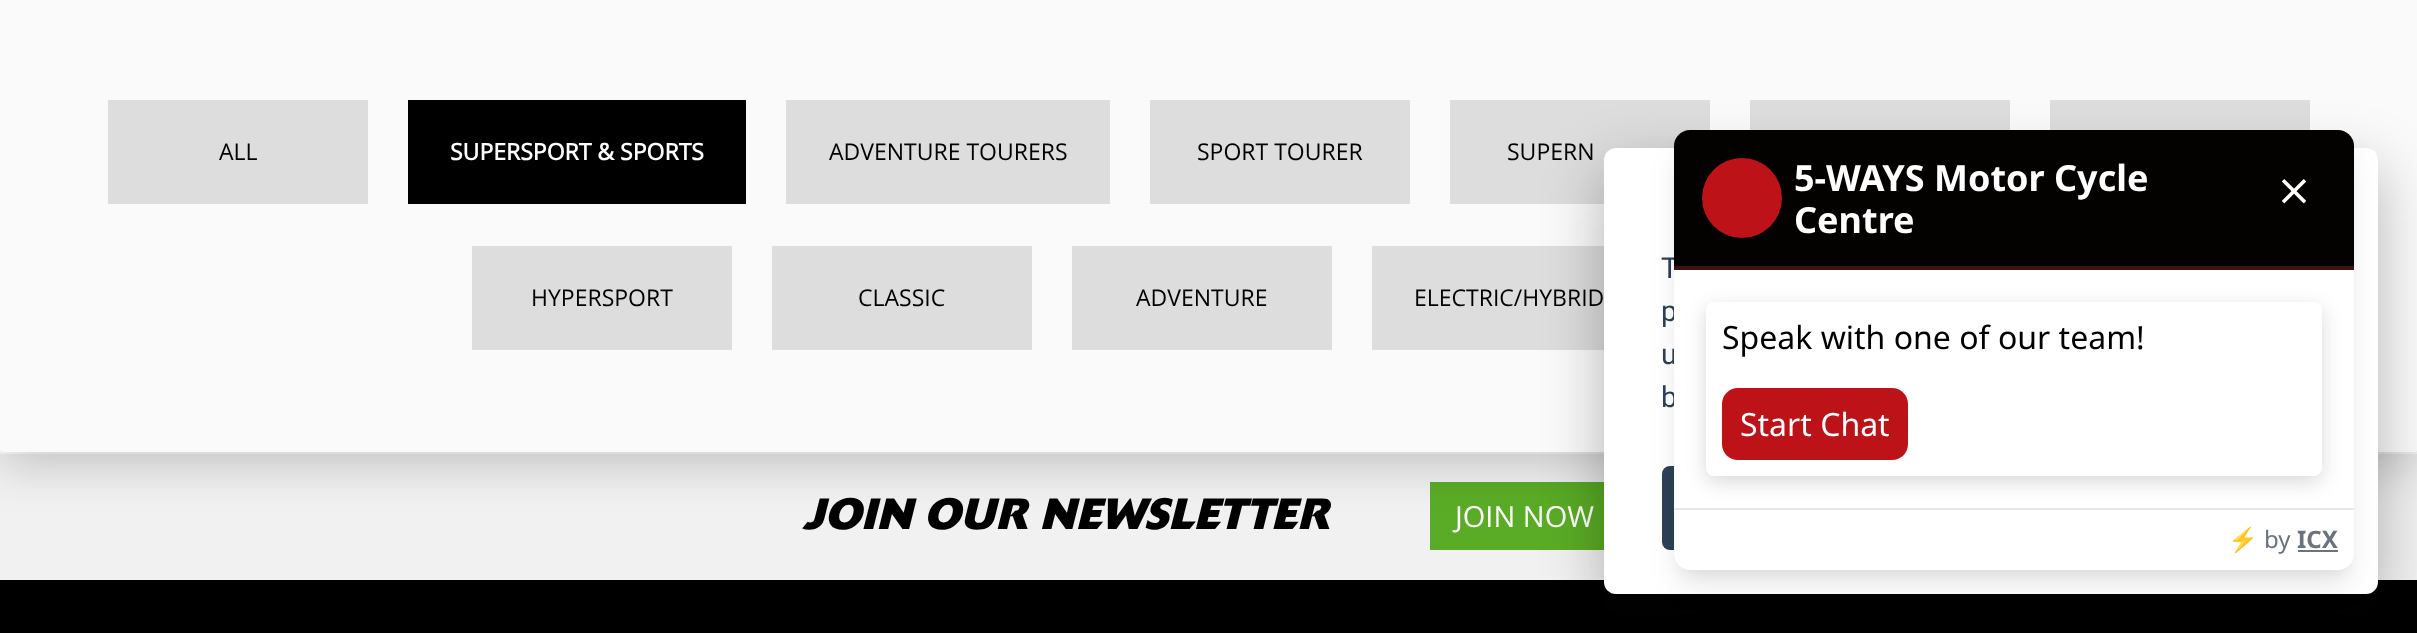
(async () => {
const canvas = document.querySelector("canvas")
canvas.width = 2417
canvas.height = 633
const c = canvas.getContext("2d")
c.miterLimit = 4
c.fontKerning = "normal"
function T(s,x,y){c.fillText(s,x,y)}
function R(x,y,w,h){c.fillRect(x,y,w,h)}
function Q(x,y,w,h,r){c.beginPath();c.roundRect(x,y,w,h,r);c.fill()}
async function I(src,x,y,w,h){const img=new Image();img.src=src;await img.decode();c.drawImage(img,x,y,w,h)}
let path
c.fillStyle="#fff"
R(0,0,2417,633)
c.fillStyle="#f1f1f1"
R(0,454,2417,126)
c.fillStyle="#5aac26"
R(1430,482,174,68)
c.fillStyle="#00000033"
c.filter="blur(24px)"
c.beginPath()
c.roundRect(0,12,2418,452,4)
c.fill()
c.filter="none"
c.fillStyle="#fafafa"
Q(0,0,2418,452,4)
c.fillStyle="#ddd"
R(1750,100,260,30)
R(2050,100,260,30)
R(108,100,260,104)
c.font="23px Open Sans"
c.fillStyle="#000"
T("ALL",219,160)
R(408,100,338,104)
c.font="bold 23px Open Sans"
c.fillStyle="#fff"
T("SUPERSPORT & SPORTS",450,160)
c.fillStyle="#ddd"
R(786,100,324,104)
c.font="23px Open Sans"
c.fillStyle="#000"
T("ADVENTURE TOURERS",829,160)
c.fillStyle="#ddd"
R(1150,100,260,104)
c.fillStyle="#000"
T("SPORT TOURER",1197,160)
c.fillStyle="#ddd"
R(1450,100,260,104)
c.fillStyle="#000"
T("SUPERN",1507,160)
c.fillStyle="#ddd"
R(472,246,260,104)
c.fillStyle="#000"
T("HYPERSPORT",531,306)
c.fillStyle="#ddd"
R(772,246,260,104)
c.fillStyle="#000"
T("CLASSIC",858,306)
c.fillStyle="#ddd"
R(1072,246,260,104)
c.fillStyle="#000"
T("ADVENTURE",1136,306)
c.fillStyle="#ddd"
R(1372,246,232,104)
c.fillStyle="#000"
T("ELECTRIC/HYBRID",1414,306)
R(0,580,2417,53)
c.font="italic bold 43.25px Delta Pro"
T("JOIN OUR NEWSLETTER",802,529)
c.font="29px Open Sans"
c.fillStyle="#fff"
T("JOIN NOW",1455,527)
c.fillStyle="#02020347"
c.filter="blur(30px)"
c.beginPath()
c.roundRect(1604,168,774,446,12)
c.fill()
c.filter="none"
c.fillStyle="#fff"
Q(1604,148,774,446,12)
c.font="29px Roboto"
c.fillStyle="#2d4156"
T("T",1661,278)
T("p",1661,321)
T("u",1661,364)
T("b",1661,407)
Q(1662,466,316,84,8)
c.fillStyle="#0000000d"
c.filter="blur(6px)"
c.beginPath()
c.roundRect(1678,142,672,432,12)
c.fill()
c.filter="none"
c.fillStyle="#0000001a"
c.filter="blur(15px)"
c.beginPath()
c.roundRect(1680,156,668,428,10)
c.fill()
c.filter="none"
c.fillStyle="#040101"
c.beginPath()
c.roundRect(1674,130,680,136,[16,16,0,0])
c.fill()
c.fillStyle="#411010"
R(1674,266,680,4)
c.fillStyle="#bd1218"
c.beginPath()
c.arc(1742,198,40,0,7)
c.fill()
c.font="bold 36px Noto Sans"
c.fillStyle="#fff"
T("5-WAYS Motor Cycle",1794,191)
T("Centre",1794,233)
await I("1.png",2282,179,24,25)
R(1674,270,680,238)
c.beginPath()
c.roundRect(1674,510,680,60,[0,0,16,16])
c.fill()
c.fillStyle="#e5e7eb"
R(1674,508,680,2)
c.fillStyle="#00000026"
c.filter="blur(10px)"
c.beginPath()
c.roundRect(1706,308,616,174,8)
c.fill()
c.filter="none"
c.fillStyle="#fff"
Q(1706,302,616,174,8)
c.font="32px Noto Sans"
c.fillStyle="#000"
T("Speak with one of our team!",1722,349)
c.fillStyle="#bd1218"
path = new Path2D("M1738 388h154c9 0 16 7 16 16v40c0 9-7 16-16 16h-154c-9 0-16-7-16-16v-40c0-9 7-16 16-16z")
c.fill(path)
c.fillStyle="#fff"
T("Start Chat",1740,436)
c.font="24px Noto Color Emoji"
c.fillStyle="#6b7280"
T("⚡",2228,548)
c.font="24px Noto Sans"
T("by",2264,548)
c.font="bold 24px Noto Sans"
T("ICX",2297,548)
R(2298,550,40,2)
})()
